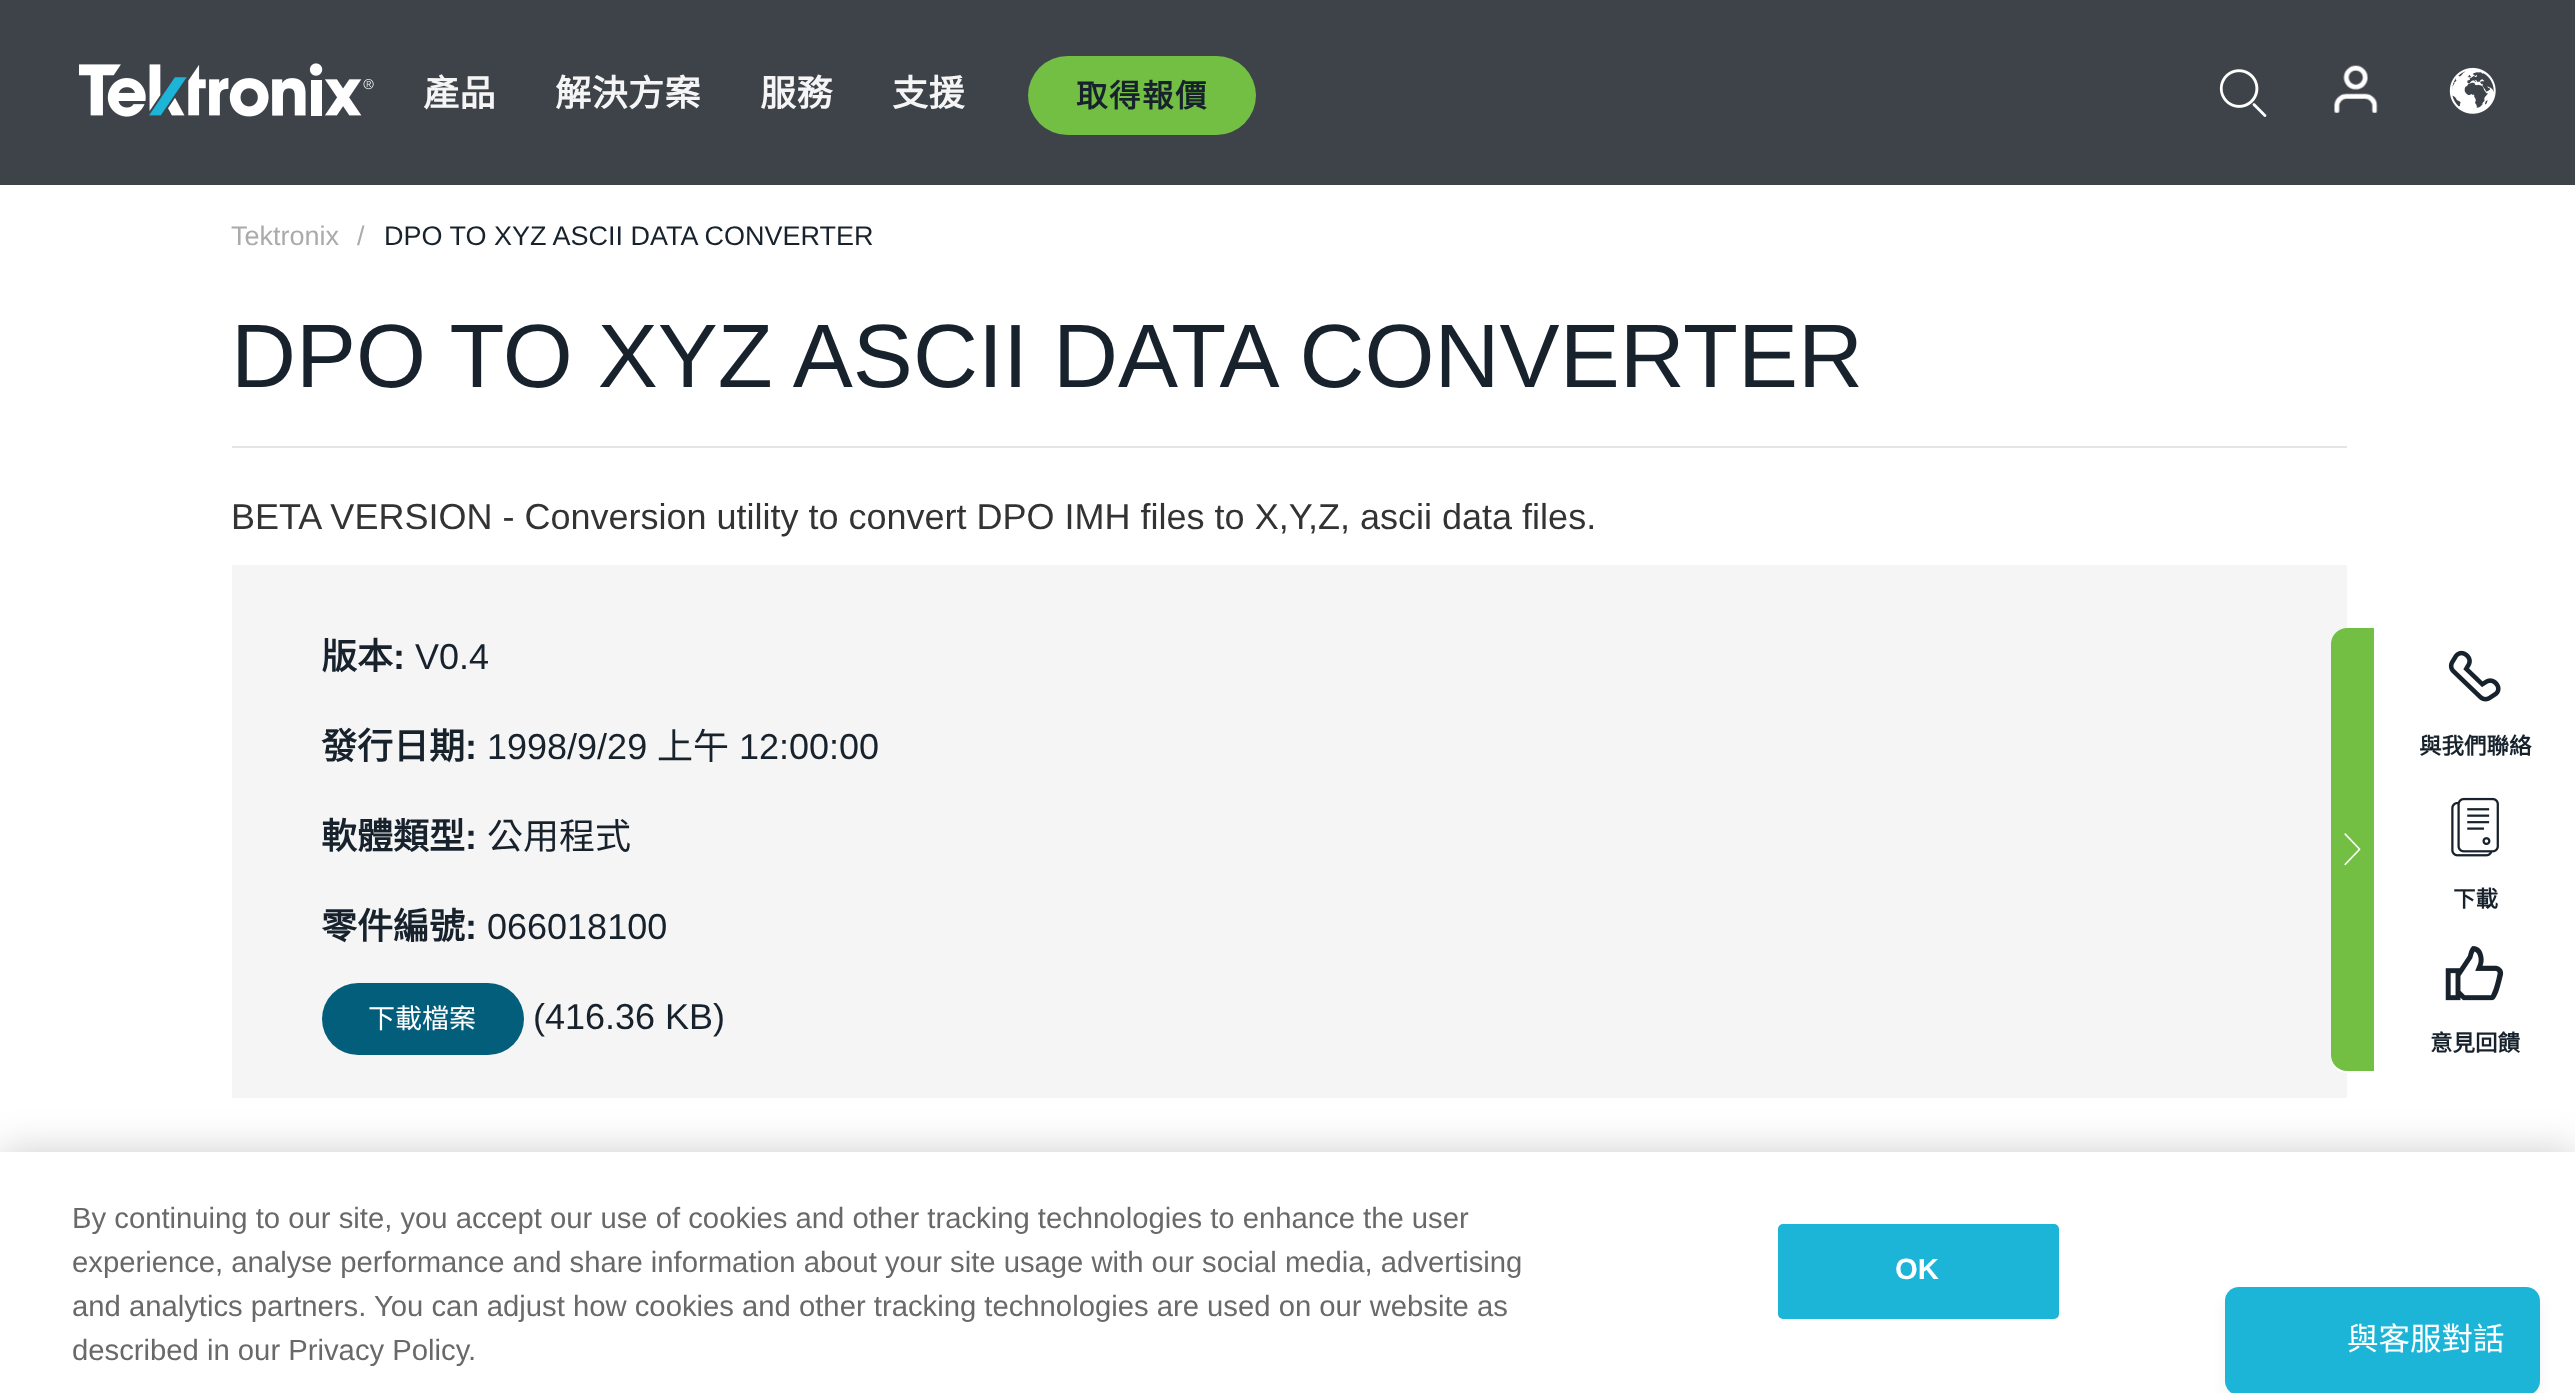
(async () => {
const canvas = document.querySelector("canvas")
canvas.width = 2575
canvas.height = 1393
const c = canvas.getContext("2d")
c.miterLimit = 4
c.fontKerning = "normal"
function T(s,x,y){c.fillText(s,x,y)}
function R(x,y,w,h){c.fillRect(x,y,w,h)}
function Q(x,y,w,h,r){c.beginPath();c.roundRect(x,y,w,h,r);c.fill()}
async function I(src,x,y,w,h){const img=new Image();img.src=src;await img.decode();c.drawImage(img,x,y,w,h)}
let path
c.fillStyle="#fff"
R(0,0,2575,1393)
c.fillStyle="#3e434a"
R(0,0,2575,185)
await I("1.png",79,63,295,54)
c.letterSpacing="0.5px"
c.font="bold 36px Noto Sans CJK TC"
c.fillStyle="#f5f5f5"
T("產品",423,106)
T("解決方案",555,106)
T("服務",760,106)
T("支援",892,106)
c.fillStyle="#73bf44"
Q(1028,56,228,79,39.5)
c.letterSpacing="1.5px"
c.font="bold 31.5px Noto Sans CJK TC"
c.fillStyle="#17222c"
T("取得報價",1076,107)
await I("2.png",2219,69,48,48)
await I("3.png",2334,65,44,48)
await I("4.png",2449,67,47,47)
c.letterSpacing="0px"
c.font="27px Liberation Sans"
c.fillStyle="#ababab"
T("Tektronix",231,245)
T("/",357,245)
c.fillStyle="#17222c"
T("DPO TO XYZ ASCII DATA CONVERTER",384,245)
c.fillStyle="#e5e5e5"
R(232,446,2115,2)
c.font="90px Liberation Sans"
c.fillStyle="#17222c"
T("DPO TO XYZ ASCII DATA CONVERTER",231,387)
c.font="36px Liberation Sans"
c.fillStyle="#333"
T("BETA VERSION - Conversion utility to convert DPO IMH files to X,Y,Z, ascii data files.",231,529)
c.fillStyle="#f5f5f5"
R(232,565,2115,533)
c.font="bold 36px Noto Sans CJK TC"
c.fillStyle="#17222c"
T("版本",321,669)
c.font="bold 36px Liberation Sans"
T(":",393,669)
c.font="36px Liberation Sans"
T("V0.4",415,669)
c.font="bold 36px Noto Sans CJK TC"
T("發行日期",321,759)
c.font="bold 36px Liberation Sans"
T(":",465,759)
c.font="36px Liberation Sans"
T("1998/9/29",487,759)
c.font="36px Noto Sans CJK TC"
T("上午",657,759)
c.font="36px Liberation Sans"
T("12:00:00",739,759)
c.font="bold 36px Noto Sans CJK TC"
T("軟體類型",321,849)
c.font="bold 36px Liberation Sans"
T(":",465,849)
c.font="36px Noto Sans CJK TC"
T("公用程式",487,849)
c.font="bold 36px Noto Sans CJK TC"
T("零件編號",321,939)
c.font="bold 36px Liberation Sans"
T(":",465,939)
c.font="36px Liberation Sans"
T("066018100",487,939)
c.fillStyle="#035e7c"
Q(322,983,202,72,36)
c.font="27px Noto Sans CJK TC"
c.fillStyle="#fff"
T("下載檔案",368,1028)
c.font="36px Liberation Sans"
c.fillStyle="#17222c"
T("(416.36 KB)",533,1029)
c.fillStyle="#fff"
path = new Path2D("M2347 628h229v445h-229c-9 0-16-7-16-16v-413c0-9 7-16 16-16z")
c.fill(path)
c.fillStyle="#73bf44"
c.beginPath()
c.roundRect(2331,628,43,443,[16,0,0,16])
c.fill()
await I("5.png",2344,833,17,33)
await I("6.png",2448,650,53,52)
c.font="bold 22.5px Noto Sans CJK TC"
c.fillStyle="#17222c"
T("與我們聯絡",2419,754)
await I("7.png",2451,797,48,60)
T("下載",2453,907)
await I("8.png",2445,946,59,55)
T("意見回饋",2430,1051)
c.fillStyle="#00000033"
c.filter="blur(20px)"
c.beginPath()
c.rect(0,1152,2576,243)
c.fill()
c.filter="none"
c.fillStyle="#fff"
R(0,1152,2575,241)
c.font="29.25px Liberation Sans"
c.fillStyle="#696969"
T("By continuing to our site, you accept our use of cookies and other tracking technologies to enhance the user",72,1228)
T("experience, analyse performance and share information about your site usage with our social media, advertising",72,1272)
T("and analytics partners.",72,1316)
T("You can adjust how cookies and other tracking technologies are used on our website as",374,1316)
T("described in our Privacy Policy.",72,1360)
c.fillStyle="#1cb5d8"
c.beginPath()
c.roundRect(1779,1225,279,93,4)
c.fill()
c.strokeStyle="#1cb5d8"
c.lineWidth=2
c.stroke()
c.font="bold 29.25px Liberation Sans"
c.fillStyle="#fff"
T("OK",1895,1279)
c.fillStyle="#1516180d"
c.filter="blur(7px)"
c.beginPath()
c.roundRect(2225,1296,315,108,14)
c.fill()
c.filter="none"
c.fillStyle="#1cb5d8"
Q(2225,1287,315,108,14)
c.font="31.5px Noto Sans CJK TC"
c.fillStyle="#fff"
T("與客服對話",2347,1350)
})()
